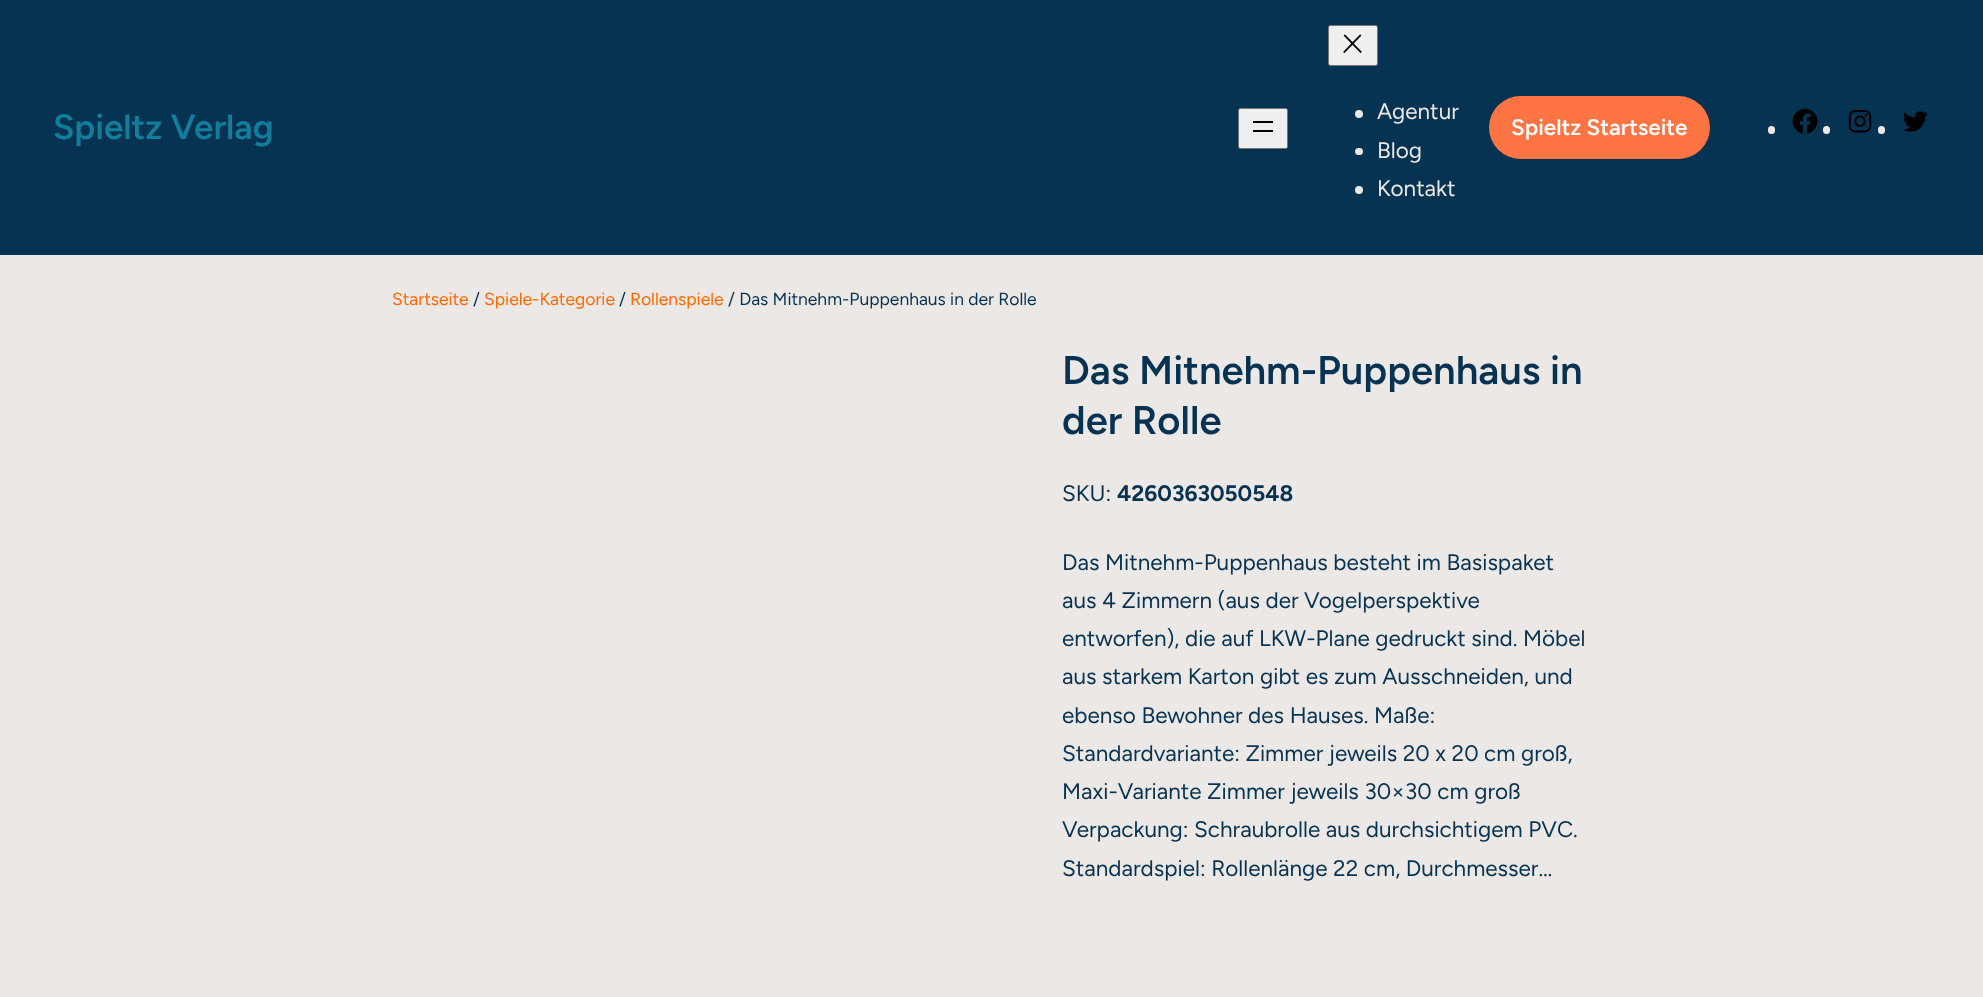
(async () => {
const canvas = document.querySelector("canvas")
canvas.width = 1983
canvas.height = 997
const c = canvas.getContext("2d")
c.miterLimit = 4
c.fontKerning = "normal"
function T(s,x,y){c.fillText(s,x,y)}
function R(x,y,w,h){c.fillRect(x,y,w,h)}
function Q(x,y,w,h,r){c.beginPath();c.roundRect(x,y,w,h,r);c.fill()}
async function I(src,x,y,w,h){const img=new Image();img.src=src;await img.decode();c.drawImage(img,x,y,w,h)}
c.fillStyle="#ebe8e6"
R(0,0,1983,997)
c.fillStyle="#073353"
R(0,0,1983,255)
c.font="600 35px Figtree"
c.fillStyle="#117e9c"
T("Spieltz Verlag",53,139)
c.fillStyle="#efefef"
c.beginPath()
c.roundRect(1238.5,108.5,49,40,2)
c.fill()
c.strokeStyle="#767676"
c.stroke()
c.fillStyle="#000"
R(1253,121,20,2)
R(1253,130,20,2)
c.fillStyle="#efefef"
c.beginPath()
c.roundRect(1328.5,25.5,49,40,2)
c.fill()
c.stroke()
await I("1.png",1343,34,19,19)
c.fillStyle="#ebe8e6"
c.beginPath()
c.arc(1359,114,4,0,7)
c.fill()
c.font="22.5px Figtree"
T("Agentur",1377,119)
Q(1355,148,8,7,3.5)
T("Blog",1377,158)
c.beginPath()
c.arc(1359,190,4,0,7)
c.fill()
T("Kontakt",1377,196)
c.fillStyle="#ff7443"
Q(1489,96,221,63,31.5)
c.font="600 22.5px Figtree"
c.fillStyle="#fdfdfd"
T("Spieltz Startseite",1511,135)
c.fillStyle="#ebe8e6"
Q(1768,126,7,8,3.5)
await I("2.png",1792,108,26,26)
Q(1823,126,7,8,3.5)
await I("3.png",1848,110,24,23)
Q(1878,126,7,8,3.5)
await I("4.png",1903,111,25,21)
c.font="17.5px Figtree"
c.fillStyle="#ff6900"
T("Startseite",392,305)
c.fillStyle="#073353"
T("/",473,305)
c.fillStyle="#ff6900"
T("Spiele-Kategorie",484,305)
c.fillStyle="#073353"
T("/",619,305)
c.fillStyle="#ff6900"
T("Rollenspiele",630,305)
c.fillStyle="#073353"
T("/ Das Mitnehm-Puppenhaus in der Rolle",728,305)
c.font="600 40px Figtree"
T("Das Mitnehm-Puppenhaus in",1062,384)
T("der Rolle",1062,434)
c.font="22.5px Figtree"
T("SKU:",1062,501)
c.font="bold 22.5px Figtree"
T("4260363050548",1117,501)
c.font="22.5px Figtree"
T("Das Mitnehm-Puppenhaus besteht im Basispaket",1062,570)
T("aus 4 Zimmern (aus der Vogelperspektive",1062,608)
T("entworfen), die auf LKW-Plane gedruckt sind. Möbel",1062,646)
T("aus starkem Karton gibt es zum Ausschneiden, und",1062,684)
T("ebenso Bewohner des Hauses. Maße:",1062,723)
T("Standardvariante: Zimmer jeweils 20 x 20 cm groß,",1062,761)
T("Maxi-Variante Zimmer jeweils 30×30 cm groß",1062,799)
T("Verpackung: Schraubrolle aus durchsichtigem PVC.",1062,837)
T("Standardspiel: Rollenlänge 22 cm, Durchmesser…",1062,876)
})()
